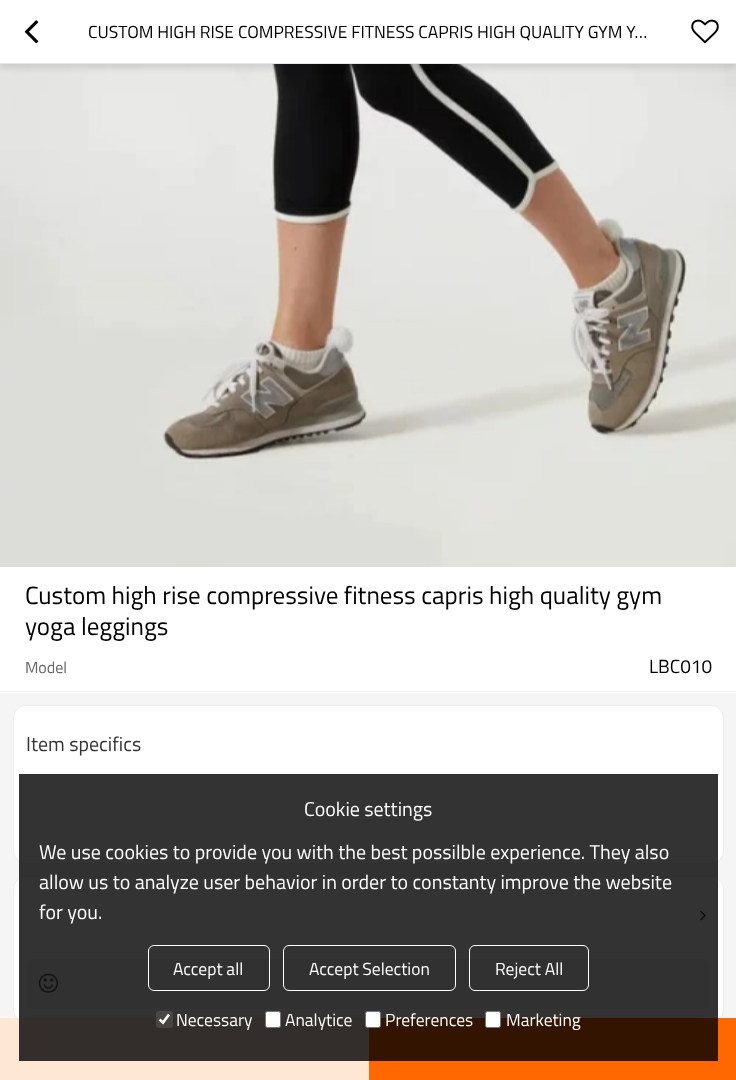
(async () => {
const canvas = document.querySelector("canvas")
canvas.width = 736
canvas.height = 1080
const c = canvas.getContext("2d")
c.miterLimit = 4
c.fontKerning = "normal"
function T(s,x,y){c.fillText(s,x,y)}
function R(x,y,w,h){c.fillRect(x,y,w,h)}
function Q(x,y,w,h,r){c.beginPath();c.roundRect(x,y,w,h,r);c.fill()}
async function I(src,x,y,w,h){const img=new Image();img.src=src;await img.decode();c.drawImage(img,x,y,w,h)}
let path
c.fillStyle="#f5f5f5"
R(0,0,736,1080)
await I("3.png",0,64,736,503)
c.fillStyle="#0000001a"
c.filter="blur(3px)"
c.beginPath()
c.rect(0,4,736,64)
c.fill()
c.filter="none"
c.fillStyle="#fff"
R(0,0,736,63)
c.fillStyle="#e5e5e5"
R(0,63,736,1)
await I("1.png",24,20,15,24)
c.font="17.5px Titillium Web"
c.fillStyle="#000"
T("CUSTOM HIGH RISE COMPRESSIVE FITNESS CAPRIS HIGH QUALITY GYM Y…",88,38)
await I("2.png",691,19,28,25)
c.fillStyle="#fff"
R(0,567,736,126)
c.fillStyle="#eee"
R(0,691,736,1)
c.font="25px Titillium Web"
c.fillStyle="#000"
T("Custom high rise compressive fitness capris high quality gym",25,604)
T("yoga leggings",25,635)
c.font="16px Titillium Web"
c.fillStyle="#666"
T("Model",25,673)
c.font="19px Titillium Web"
c.fillStyle="#000"
T("LBC010",649,673)
c.fillStyle="#fff"
c.beginPath()
c.roundRect(13.5,705.5,710,158,12.5)
c.fill()
c.strokeStyle="#eee"
c.stroke()
c.font="20px Titillium Web"
c.fillStyle="#333"
T("Item specifics",26,751)
c.fillStyle="#fff"
c.beginPath()
c.roundRect(13.5,876.5,710,146,12.5)
c.fill()
c.stroke()
await I("4.png",700,910,6,11)
c.fillStyle="#f5f5f5"
Q(26,959,684,50,6)
await I("5.png",38,973,20,20)
c.fillStyle="#ffe7d6"
R(0,1018,369,62)
c.fillStyle="#ff6700"
R(369,1018,367,62)
c.fillStyle="#000000cc"
R(19,774,699,287)
c.fillStyle="#fff"
T("Cookie settings",304,816)
T("We use cookies to provide you with the best possilble experience. They also",39,859)
T("allow us to analyze user behavior in order to constanty improve the website",39,889)
T("for you.",39,919)
c.beginPath()
c.roundRect(148.5,945.5,121,45,5.5)
c.strokeStyle="#fff"
c.stroke()
c.font="17.5px Titillium Web"
T("Accept all",173,975)
c.beginPath()
c.roundRect(283.5,945.5,172,45,5.5)
c.stroke()
T("Accept Selection",309,975)
c.beginPath()
c.roundRect(469.5,945.5,119,45,5.5)
c.stroke()
T("Reject All",495,975)
c.fillStyle="#7676764d"
Q(156,1011,17,17,2.5)
path = new Path2D("M159.5 1019.5l3.5 3l6-8")
c.lineWidth=2.6
c.stroke(path)
c.fillStyle="#fff"
T("Necessary",176,1026)
c.beginPath()
c.roundRect(265.5,1011.5,15,16,2)
c.fill()
c.strokeStyle="#767676"
c.lineWidth=1
c.stroke()
T("Analytice",285,1026)
c.beginPath()
c.roundRect(365.5,1011.5,15,16,2)
c.fill()
c.stroke()
T("Preferences",385,1026)
c.beginPath()
c.roundRect(485.5,1011.5,15,16,2)
c.fill()
c.stroke()
T("Marketing",506,1026)
})()
